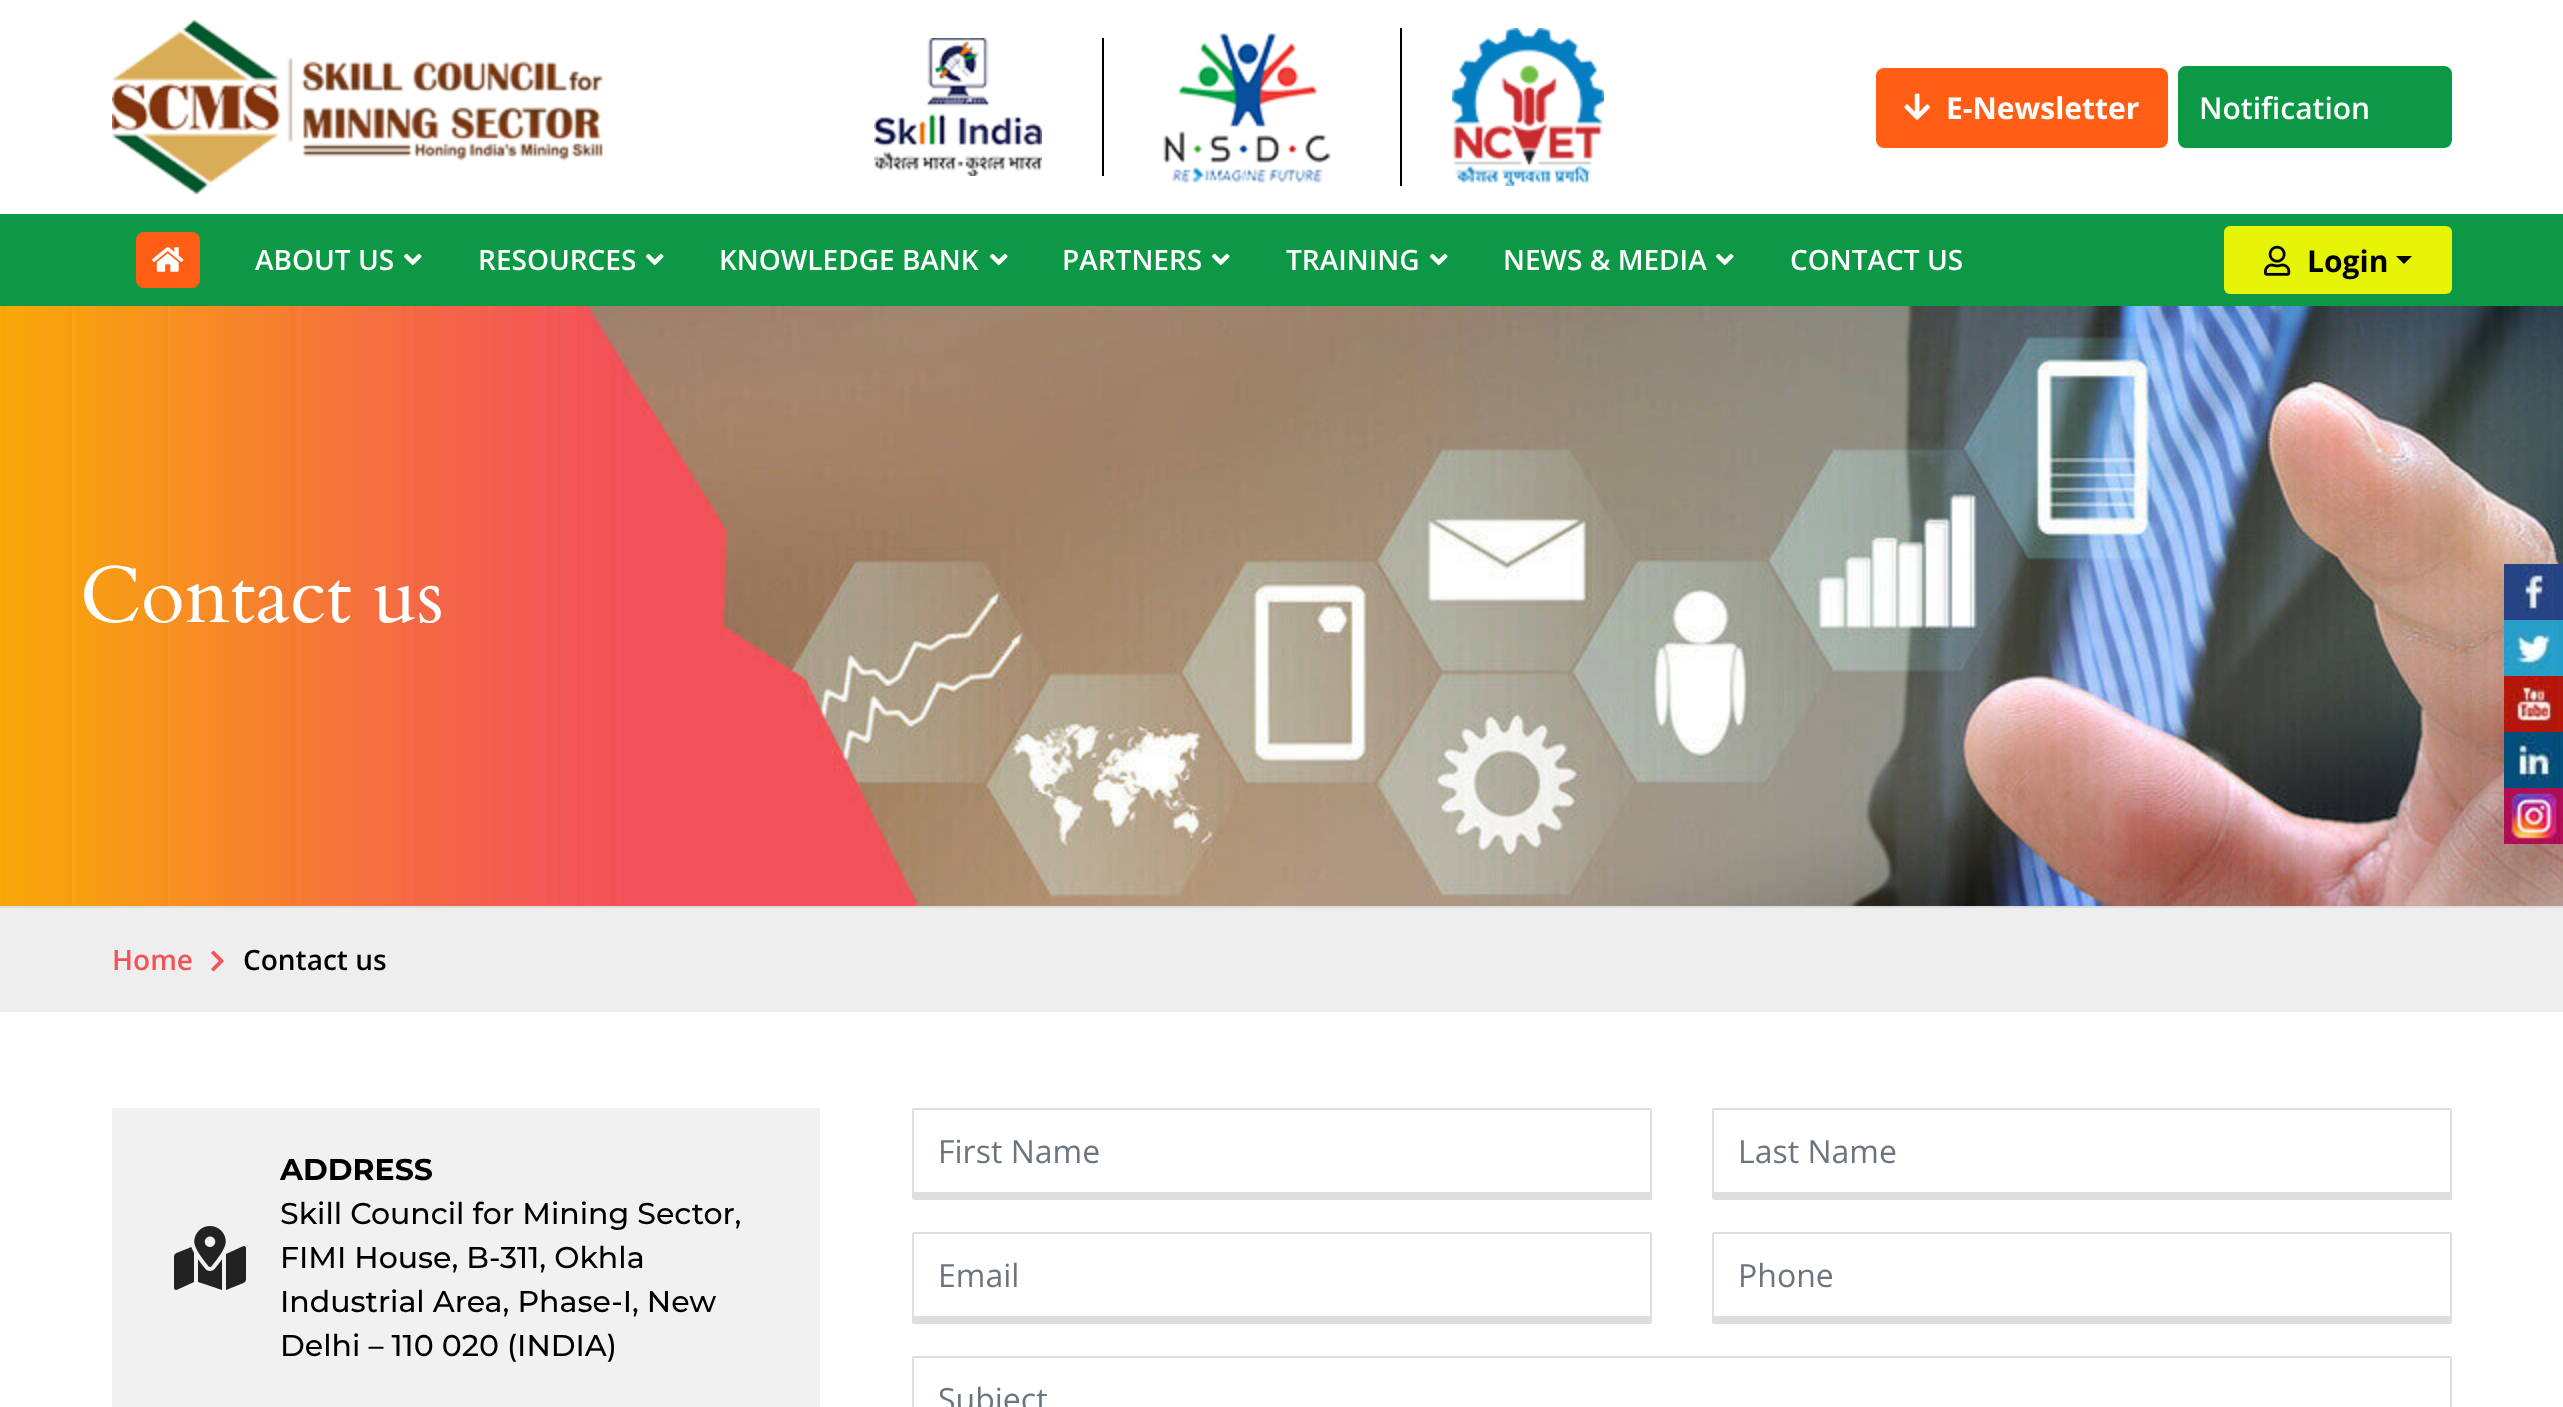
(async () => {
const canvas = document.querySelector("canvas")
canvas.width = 2563
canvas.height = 1407
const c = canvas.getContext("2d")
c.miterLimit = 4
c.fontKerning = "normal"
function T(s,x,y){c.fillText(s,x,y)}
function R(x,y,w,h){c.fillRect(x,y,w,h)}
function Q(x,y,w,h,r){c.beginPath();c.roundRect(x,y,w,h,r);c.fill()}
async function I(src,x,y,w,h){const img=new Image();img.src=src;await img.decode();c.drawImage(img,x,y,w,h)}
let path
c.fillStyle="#fff"
R(0,0,2563,1407)
await I("1.png",112,20,491,174)
c.fillStyle="#000"
R(1102,38,2,138)
await I("2.png",874,38,168,138)
R(1400,28,2,158)
await I("3.png",1163,33,168,150)
await I("4.png",1452,28,152,158)
c.fillStyle="#ff5e14"
Q(1876,68,292,80,8)
await I("5.png",1904,93,26,27)
c.font="bold 30px Open Sans"
c.fillStyle="#fff"
T("E-Newsletter",1946,119)
c.fillStyle="#0c9845"
c.beginPath()
c.roundRect(2179,67,272,80,7)
c.fill()
c.strokeStyle="#0c9845"
c.lineWidth=2
c.stroke()
c.font="600 30px Open Sans"
c.fillStyle="#fff"
T("Notification",2199,119)
c.fillStyle="#0c9845"
R(0,214,2563,92)
c.fillStyle="#ff5e14"
Q(136,232,64,56,8)
await I("6.png",152,247,32,25)
c.font="600 28px Open Sans"
c.fillStyle="#fff"
T("ABOUT US",255,270)
await I("7.png",404,253,18,13)
T("RESOURCES",478,270)
await I("7.png",646,253,18,13)
T("KNOWLEDGE BANK",719,270)
await I("7.png",990,253,18,13)
T("PARTNERS",1062,270)
await I("7.png",1212,253,18,13)
T("TRAINING",1286,270)
await I("7.png",1430,253,18,13)
T("NEWS & MEDIA",1503,270)
await I("7.png",1716,253,18,13)
T("CONTACT US",1790,270)
c.fillStyle="#e6f407"
Q(2224,226,228,68,6)
await I("8.png",2264,245,27,31)
c.font="bold 30px Open Sans"
c.fillStyle="#000"
T("Login",2307,272)
path = new Path2D("M2396 256h16l-8 8z")
c.fill(path)
await I("9.png",0,306,2563,600)
c.font="80px Cardo"
c.fillStyle="#fff"
T("Contact us",80,622)
await I("10.png",2504,564,59,56)
await I("11.png",2504,620,59,56)
await I("12.png",2504,676,59,56)
await I("13.png",2504,732,59,56)
await I("14.png",2504,788,59,56)
c.fillStyle="#eee"
R(0,908,2563,104)
c.fillStyle="#ddd"
R(0,906,2563,2)
c.font="600 28px Open Sans"
c.fillStyle="#f3525a"
T("Home",112,970)
await I("15.png",211,950,13,22)
c.fillStyle="#000"
T("Contact us",243,970)
c.fillStyle="#f1f1f1"
R(112,1108,708,299)
await I("16.png",174,1226,72,64)
c.font="bold 30px Montserrat"
c.fillStyle="#000"
T("ADDRESS",280,1180)
c.font="500 30px Montserrat"
T("Skill Council for Mining Sector,",280,1224)
T("FIMI House, B-311, Okhla",280,1268)
T("Industrial Area, Phase-I, New",280,1312)
T("Delhi – 110 020 (INDIA)",280,1356)
c.beginPath()
c.roundRect(913,1109,738,90,1)
c.strokeStyle="#dedede"
c.stroke()
c.fillStyle="#dedede"
R(914,1192,738,6)
c.font="32px Open Sans"
c.fillStyle="#6c757d"
T("First Name",938,1163)
c.beginPath()
c.roundRect(1713,1109,738,90,1)
c.stroke()
c.fillStyle="#dedede"
R(1714,1192,738,6)
c.fillStyle="#6c757d"
T("Last Name",1738,1163)
c.beginPath()
c.roundRect(913,1233,738,90,1)
c.stroke()
c.fillStyle="#dedede"
R(914,1316,738,6)
c.fillStyle="#6c757d"
T("Email",938,1287)
c.beginPath()
c.roundRect(1713,1233,738,90,1)
c.stroke()
c.fillStyle="#dedede"
R(1714,1316,738,6)
c.fillStyle="#6c757d"
T("Phone",1738,1287)
c.beginPath()
c.roundRect(913,1357,1538,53,1)
c.stroke()
T("Subject",938,1411)
})()
